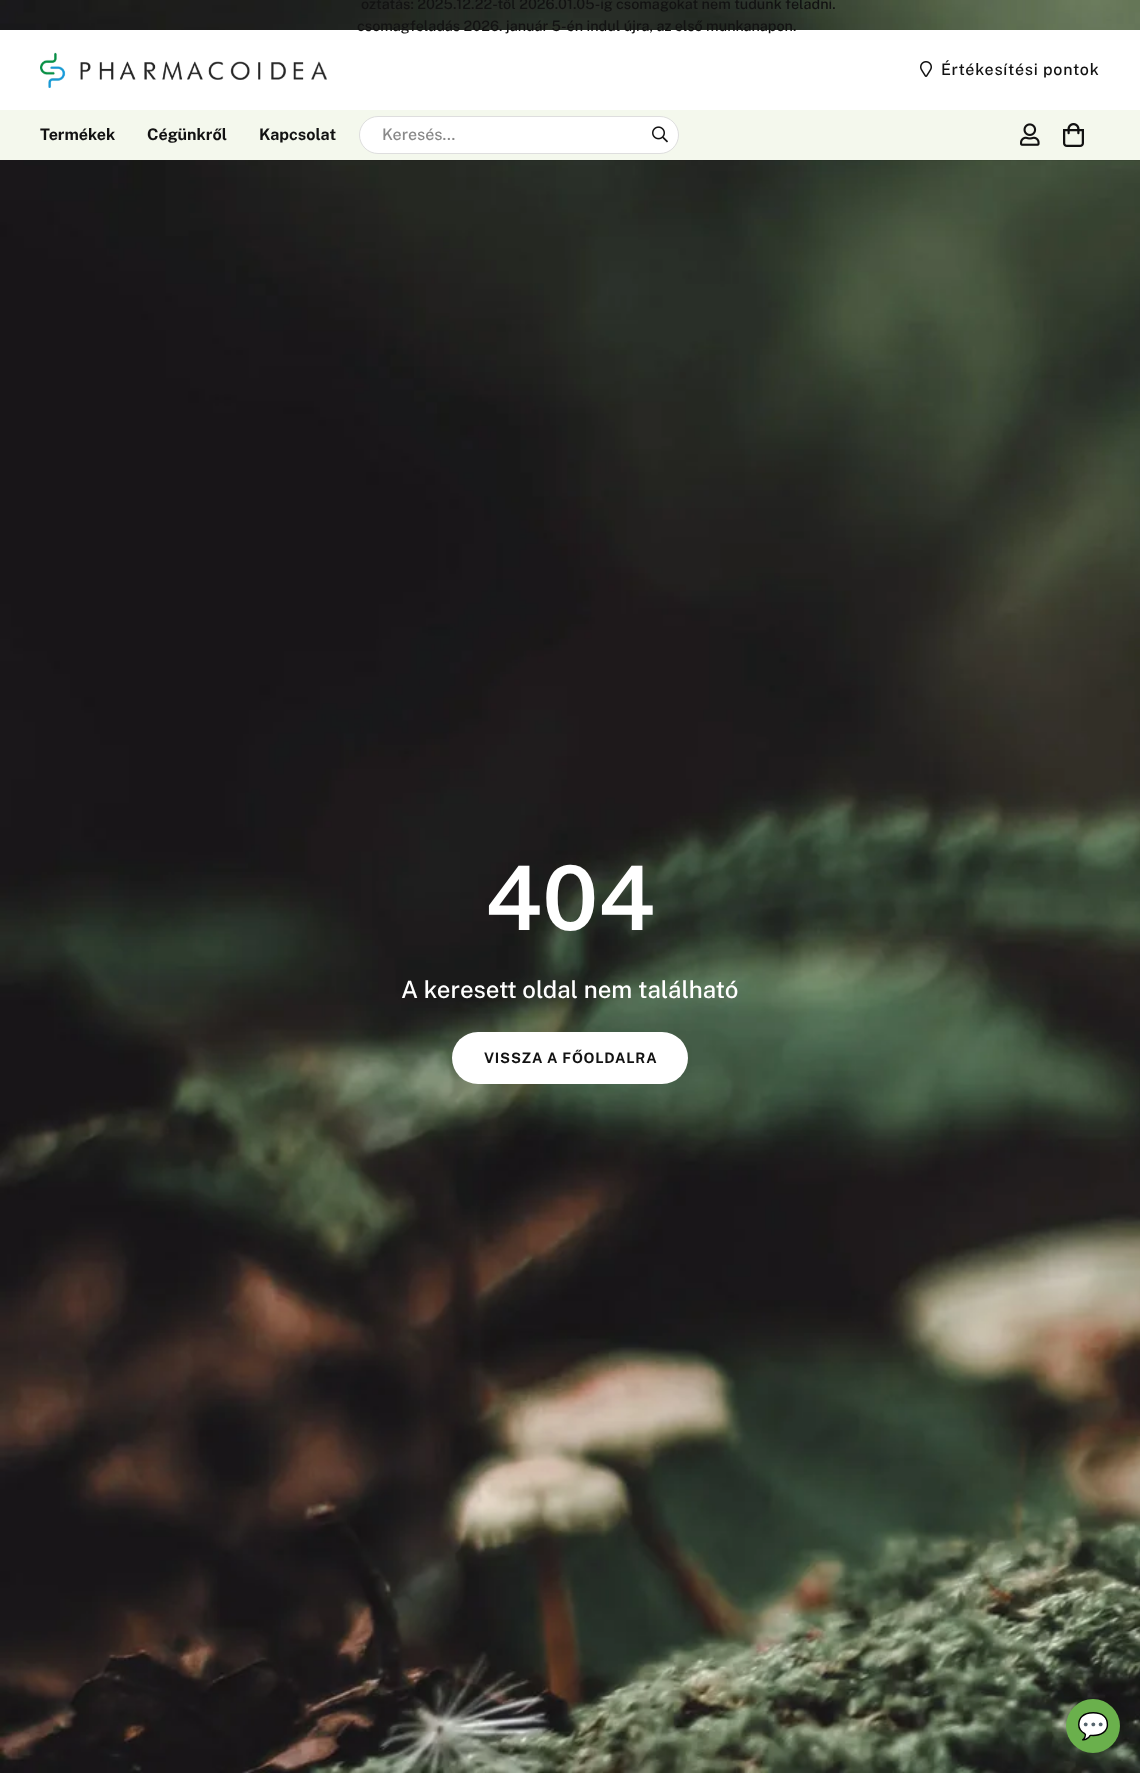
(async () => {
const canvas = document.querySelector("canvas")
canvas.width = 1140
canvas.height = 1773
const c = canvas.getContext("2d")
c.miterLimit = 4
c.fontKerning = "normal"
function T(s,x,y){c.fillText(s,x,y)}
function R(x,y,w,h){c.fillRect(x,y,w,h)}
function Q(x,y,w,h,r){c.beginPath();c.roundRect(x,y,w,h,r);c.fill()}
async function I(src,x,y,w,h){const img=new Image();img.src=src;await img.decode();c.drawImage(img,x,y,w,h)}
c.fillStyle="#fff"
R(0,0,1140,1773)
await I("6.png",0,0,1140,1773)
c.font="500 14.4px Public Sans"
c.fillStyle="#121212"
T("oztatás: 2025.12.22-től 2026.01.05-ig csomagokat nem tudunk feladni.",361,9)
c.fillStyle="#fff"
R(0,30,1140,80)
c.fillStyle="#121212"
T("csomagfeladás 2026. január 5-én indul újra, az első munkanapon.",357,31)
await I("1.png",40,52,287,36)
await I("2.png",920,61,12,16)
c.letterSpacing="0.75px"
c.font="500 16px Public Sans"
T("Értékesítési pontok",941,75)
c.fillStyle="#00000014"
R(264,160,876,1)
c.fillStyle="#f4f8ed"
R(0,110,1140,50)
c.letterSpacing="0px"
c.font="bold 16px Public Sans"
c.fillStyle="#121212"
T("Termékek",40,140)
T("Cégünkről",147,140)
T("Kapcsolat",259,140)
c.fillStyle="#fff"
c.beginPath()
c.roundRect(359.5,116.5,319,37,18.5)
c.fill()
c.strokeStyle="#dedede"
c.stroke()
c.font="500 16px Public Sans"
c.fillStyle="#898989"
T("Keresés...",382,140)
await I("3.png",652,126,16,17)
await I("4.png",1020,123,20,23)
await I("5.png",1063,123,21,24)
c.font="600 89px Public Sans"
c.fillStyle="#fff"
T("404",485,930)
c.font="500 24px Public Sans"
T("A keresett oldal nem található",401,998)
Q(452,1032,236,52,26)
c.letterSpacing="0.75px"
c.font="bold 14.4px Public Sans"
c.fillStyle="#121212"
T("VISSZA A FŐOLDALRA",484,1063)
c.fillStyle="#0000002e"
c.filter="blur(6px)"
c.beginPath()
c.roundRect(1066,1703,54,54,27)
c.fill()
c.filter="none"
c.fillStyle="#6ab04c"
c.beginPath()
c.arc(1093,1726,27,0,7)
c.fill()
c.letterSpacing="0px"
c.font="26px Noto Color Emoji"
c.fillStyle="#fff"
T("💬",1077,1735)
})()
